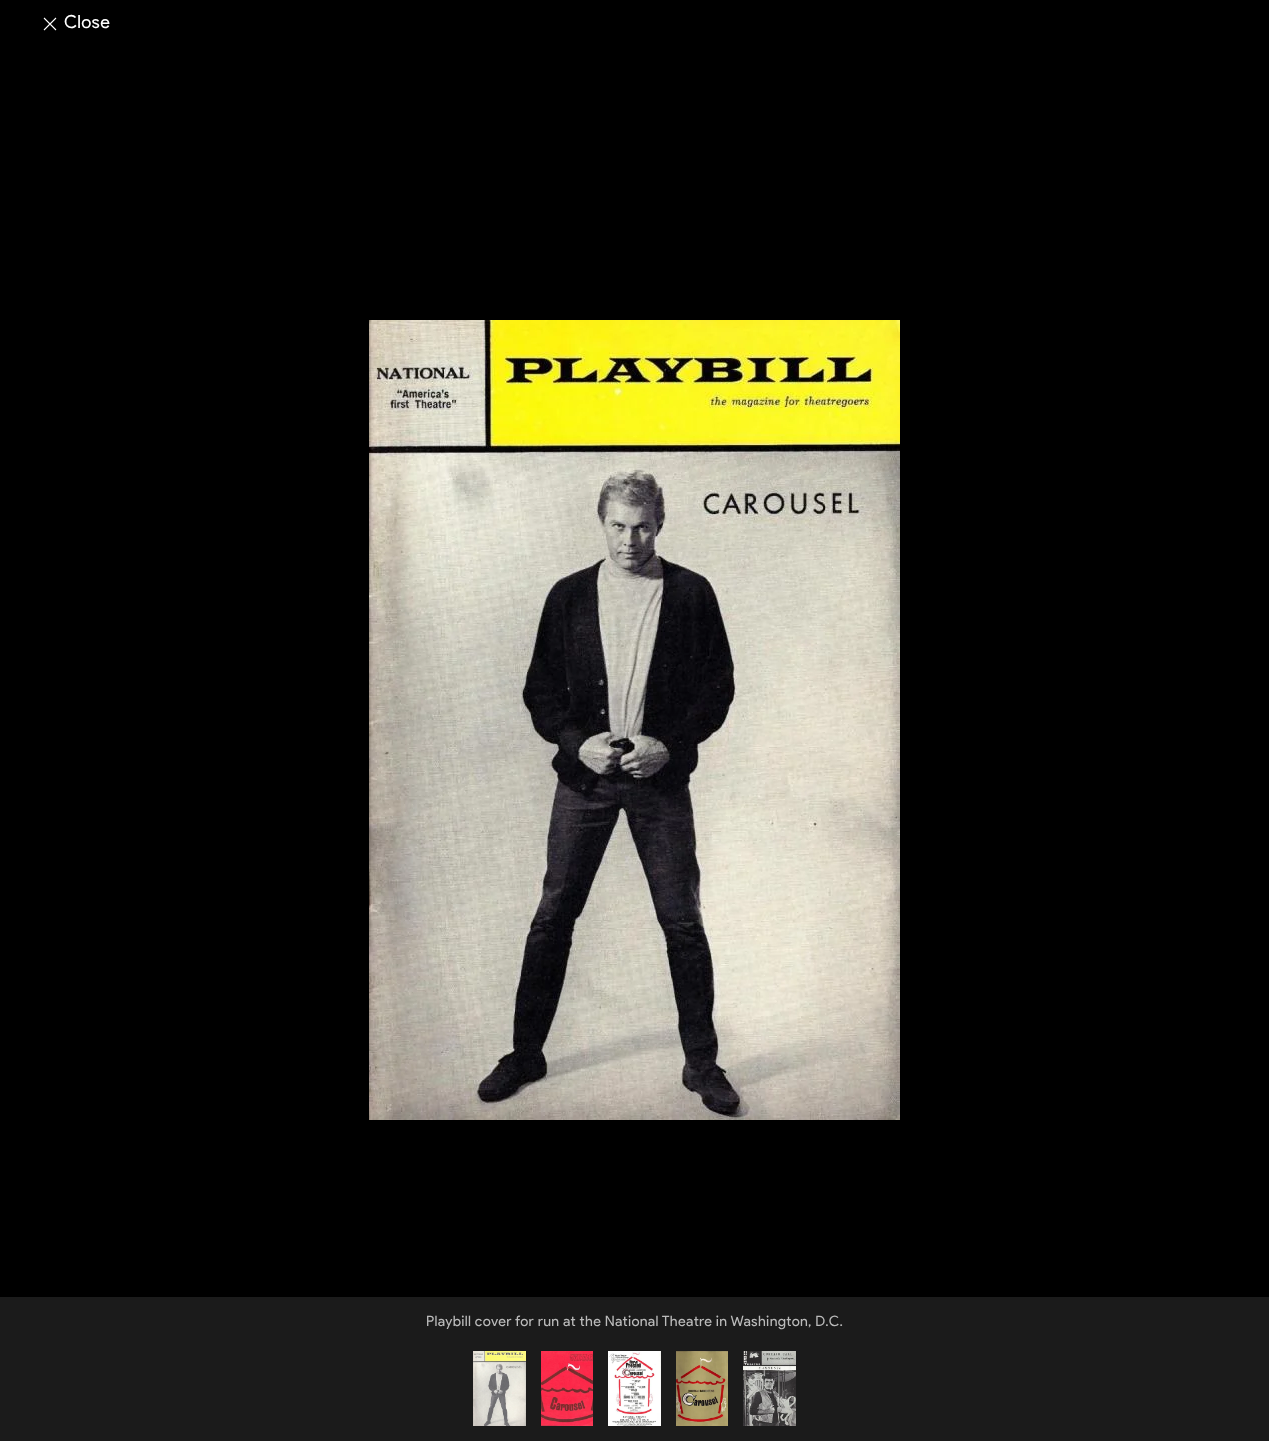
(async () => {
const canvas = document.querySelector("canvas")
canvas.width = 1269
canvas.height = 1441
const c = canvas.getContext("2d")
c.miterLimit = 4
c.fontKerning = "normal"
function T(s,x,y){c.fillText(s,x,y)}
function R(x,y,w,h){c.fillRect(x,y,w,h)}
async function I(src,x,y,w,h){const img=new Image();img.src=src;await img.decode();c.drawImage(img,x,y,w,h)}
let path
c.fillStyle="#000"
R(0,0,1269,1441)
path = new Path2D("M56 30l-12-12m12 0l-12 12")
c.strokeStyle="#fff"
c.lineWidth=1.1
c.stroke(path)
c.letterSpacing="0.35px"
c.font="18px Product Sans"
c.fillStyle="#fff"
T("Close",64,28)
await I("1.png",369,320,531,800)
c.fillStyle="#1b1b1b"
R(0,1297,1269,144)
c.font="14.4px Product Sans"
c.fillStyle="#bbb"
T("Playbill cover for run at the National Theatre in Washington, D.C.",426,1326)
await I("2.png",473,1351,53,75)
await I("3.png",541,1351,52,75)
await I("4.png",608,1351,53,75)
await I("5.png",676,1351,52,75)
await I("6.png",743,1351,53,75)
})()
